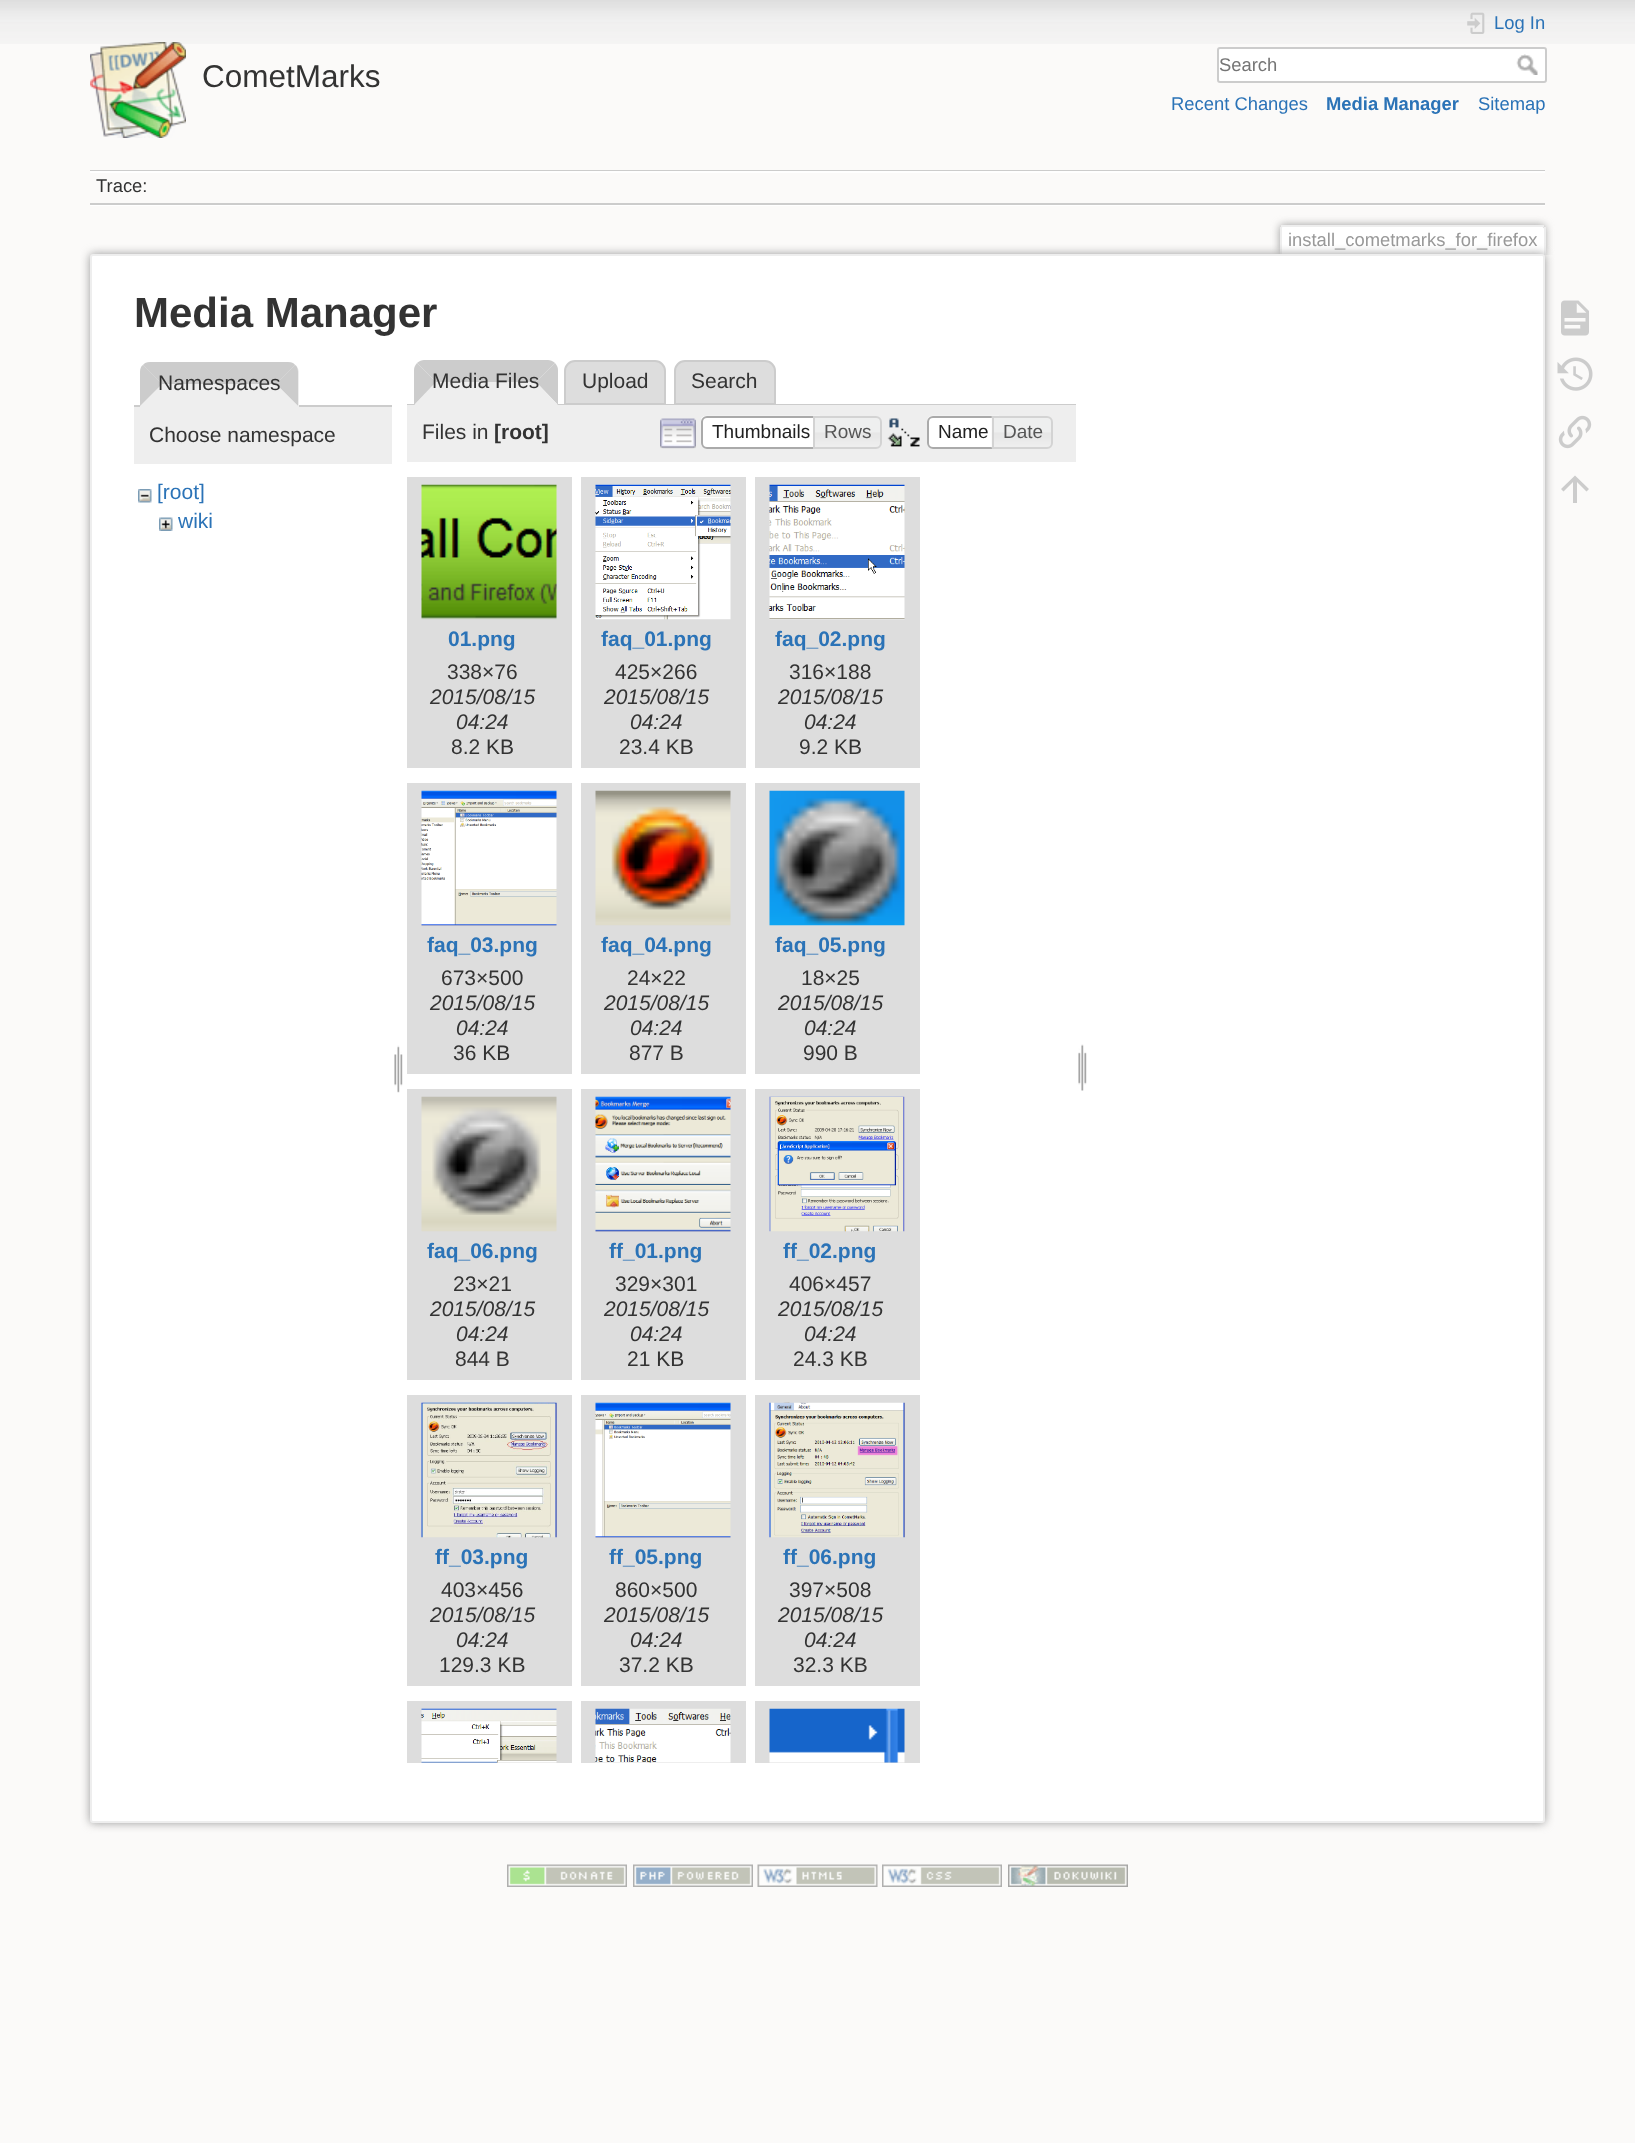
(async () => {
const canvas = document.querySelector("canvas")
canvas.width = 1635
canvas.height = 2143
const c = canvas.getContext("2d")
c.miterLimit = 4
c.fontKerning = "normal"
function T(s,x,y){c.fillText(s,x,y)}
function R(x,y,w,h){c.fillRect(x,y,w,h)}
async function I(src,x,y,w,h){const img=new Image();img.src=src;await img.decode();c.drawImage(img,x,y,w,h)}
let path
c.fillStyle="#fbfaf9"
R(0,0,1635,2143)
await I("1.png",0,0,1635,44)
await I("2.png",90,42,96,96)
c.font="31.5px Liberation Sans"
c.fillStyle="#333"
T("CometMarks",202,87)
await I("3.png",1467,12,18,22)
c.font="18.4px Liberation Sans"
c.fillStyle="#2b73b7"
T("Log In",1494,29)
c.fillStyle="#fff"
c.beginPath()
c.roundRect(1218,48,328,34,2)
c.fill()
c.strokeStyle="#ccc"
c.lineWidth=2
c.stroke()
c.fillStyle="#757575"
T("Search",1219,71)
await I("4.png",1516,54,22,21)
c.fillStyle="#2b73b7"
T("Recent Changes",1171,110)
c.font="bold 18.4px Liberation Sans"
T("Media Manager",1326,110)
c.font="18.4px Liberation Sans"
T("Sitemap",1478,110)
c.fillStyle="#ccc"
R(90,170,1455,1)
c.fillStyle="#fff"
R(90,205,1455,1)
R(90,171,1455,2)
c.fillStyle="#ccc"
R(90,203,1455,2)
c.fillStyle="#333"
T("Trace:",96,192)
c.save()
c.beginPath()
c.rect(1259,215,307,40)
c.clip()
c.fillStyle="#999"
c.filter="blur(4.5px)"
c.beginPath()
c.roundRect(1280,225,265,30,3)
c.fill()
c.filter="none"
c.restore()
c.fillStyle="#fff"
c.beginPath()
c.roundRect(1281,227,263,28,[1.5,1.5,0,0])
c.fill()
c.fillStyle="#eee"
R(1281,225,263,2)
R(1544,227,2,28)
R(1280,227,2,28)
c.fillStyle="#999"
T("install_cometmarks_for_firefox",1288,246)
c.filter="blur(5px)"
c.beginPath()
c.roundRect(90,254,1455,1569,3)
c.fill()
c.filter="none"
c.fillStyle="#fff"
c.beginPath()
c.roundRect(91,255,1453,1567,2)
c.fill()
c.strokeStyle="#eee"
c.stroke()
c.font="bold 42px Liberation Sans"
c.fillStyle="#333"
T("Media Manager",134,327)
c.fillStyle="#ccc"
R(134,405,258,2)
c.fillStyle="#eee"
c.beginPath()
c.roundRect(140,362,159,45,[11,11,0,0])
c.fill()
c.fillStyle="#ccc"
path = new Path2D("M150 362c-3 0-6 1-7 3l19 19h114l19-19c-1-2-4-3-7-3z")
c.fill(path)
path = new Path2D("M298 406v-34c0-3-1-6-3-7l-19 19z")
c.fill(path)
c.fillStyle="#eee"
path = new Path2D("M298 406l-22-22h-114l-22 22z")
c.fill(path)
c.fillStyle="#ccc"
path = new Path2D("M143 365c-2 1-3 4-3 7v34l22-22z")
c.fill(path)
c.font="21px Liberation Sans"
c.fillStyle="#333"
T("Namespaces",158,390)
c.fillStyle="#eee"
R(134,407,258,57)
c.fillStyle="#333"
T("Choose namespace",149,442)
await I("5.png",138,489,14,14)
c.fillStyle="#2b73b7"
T("[root]",157,499)
await I("6.png",159,517,14,14)
T("wiki",178,528)
await I("7.png",394,1045,9,48)
c.fillStyle="#ccc"
path = new Path2D("M424 360h124c2 0 5 1 7 3l-19 19h-100l-19-19c2-2 5-3 7-3z")
c.fill(path)
c.fillStyle="#ddd"
c.beginPath()
c.roundRect(565,361,100,43,[10,10,0,0])
c.fill()
c.strokeStyle="#ccc"
c.stroke()
c.beginPath()
c.roundRect(675,361,100,43,[10,10,0,0])
c.fill()
c.stroke()
c.fillStyle="#ccc"
R(407,404,669,1)
path = new Path2D("M555 363l-19 19l22 23v-35c0-2-1-5-3-7z")
c.fill(path)
c.fillStyle="#eee"
path = new Path2D("M558 405l-22-23h-100l-22 23z")
c.fill(path)
c.fillStyle="#ccc"
path = new Path2D("M414 405v-35c0-2 1-5 3-7l19 19z")
c.fill(path)
c.fillStyle="#333"
T("Media Files",432,388)
T("Upload",582,388)
T("Search",691,388)
c.fillStyle="#eee"
R(407,405,669,57)
c.fillStyle="#333"
T("Files in",422,439)
c.font="bold 21px Liberation Sans"
T("[root]",494,439)
await I("8.png",660,418,36,31)
c.fillStyle="#fff"
c.beginPath()
c.roundRect(701,416,120,33,[6,0,0,6])
c.fill()
await I("9.png",700,415,120,31)
c.beginPath()
c.roundRect(702,417,118,31,[5,0,0,5])
c.strokeStyle="#aaa"
c.stroke()
c.font="19px Liberation Sans"
c.fillStyle="#212121"
T("Thumbnails",712,438)
await I("10.png",815,416,67,32)
c.beginPath()
c.roundRect(814,417,67,31,[0,5,5,0])
c.strokeStyle="#d3d3d3"
c.stroke()
c.fillStyle="#555"
T("Rows",824,438)
await I("11.png",887,418,33,29)
c.fillStyle="#fff"
c.beginPath()
c.roundRect(927,416,72,33,[6,0,0,6])
c.fill()
await I("12.png",927,415,72,5)
c.beginPath()
c.roundRect(928,417,70,31,[5,0,0,5])
c.strokeStyle="#aaa"
c.stroke()
c.fillStyle="#212121"
T("Name",938,438)
await I("13.png",991,416,62,33)
c.beginPath()
c.roundRect(993,417,59,31,[0,5,5,0])
c.strokeStyle="#d3d3d3"
c.stroke()
c.fillStyle="#555"
T("Date",1003,438)
c.fillStyle="#ddd"
R(407,477,165,291)
await I("14.png",421,484,136,136)
c.font="bold 21px Liberation Sans"
c.fillStyle="#2b73b7"
T("01.png",448,646)
c.font="21px Liberation Sans"
c.fillStyle="#333"
T("338×76",447,679)
c.font="italic 21px Liberation Sans"
T("2015/08/15",430,704)
T("04:24",456,729)
c.font="21px Liberation Sans"
T("8.2 KB",451,754)
c.fillStyle="#ddd"
R(581,477,165,291)
await I("15.png",595,484,136,136)
c.font="bold 21px Liberation Sans"
c.fillStyle="#2b73b7"
T("faq_01.png",601,646)
c.font="21px Liberation Sans"
c.fillStyle="#333"
T("425×266",615,679)
c.font="italic 21px Liberation Sans"
T("2015/08/15",604,704)
T("04:24",630,729)
c.font="21px Liberation Sans"
T("23.4 KB",619,754)
c.fillStyle="#ddd"
R(755,477,165,291)
await I("16.png",769,484,136,136)
c.font="bold 21px Liberation Sans"
c.fillStyle="#2b73b7"
T("faq_02.png",775,646)
c.font="21px Liberation Sans"
c.fillStyle="#333"
T("316×188",789,679)
c.font="italic 21px Liberation Sans"
T("2015/08/15",778,704)
T("04:24",804,729)
c.font="21px Liberation Sans"
T("9.2 KB",799,754)
c.fillStyle="#ddd"
R(407,783,165,291)
await I("17.png",421,790,136,136)
c.font="bold 21px Liberation Sans"
c.fillStyle="#2b73b7"
T("faq_03.png",427,952)
c.font="21px Liberation Sans"
c.fillStyle="#333"
T("673×500",441,985)
c.font="italic 21px Liberation Sans"
T("2015/08/15",430,1010)
T("04:24",456,1035)
c.font="21px Liberation Sans"
T("36 KB",453,1060)
c.fillStyle="#ddd"
R(581,783,165,291)
await I("18.png",595,790,136,136)
c.font="bold 21px Liberation Sans"
c.fillStyle="#2b73b7"
T("faq_04.png",601,952)
c.font="21px Liberation Sans"
c.fillStyle="#333"
T("24×22",627,985)
c.font="italic 21px Liberation Sans"
T("2015/08/15",604,1010)
T("04:24",630,1035)
c.font="21px Liberation Sans"
T("877 B",629,1060)
c.fillStyle="#ddd"
R(755,783,165,291)
await I("19.png",769,790,136,136)
c.font="bold 21px Liberation Sans"
c.fillStyle="#2b73b7"
T("faq_05.png",775,952)
c.font="21px Liberation Sans"
c.fillStyle="#333"
T("18×25",801,985)
c.font="italic 21px Liberation Sans"
T("2015/08/15",778,1010)
T("04:24",804,1035)
c.font="21px Liberation Sans"
T("990 B",803,1060)
c.fillStyle="#ddd"
R(407,1089,165,291)
await I("20.png",421,1096,136,136)
c.font="bold 21px Liberation Sans"
c.fillStyle="#2b73b7"
T("faq_06.png",427,1258)
c.font="21px Liberation Sans"
c.fillStyle="#333"
T("23×21",453,1291)
c.font="italic 21px Liberation Sans"
T("2015/08/15",430,1316)
T("04:24",456,1341)
c.font="21px Liberation Sans"
T("844 B",455,1366)
c.fillStyle="#ddd"
R(581,1089,165,291)
await I("21.png",595,1096,136,136)
c.font="bold 21px Liberation Sans"
c.fillStyle="#2b73b7"
T("ff_01.png",609,1258)
c.font="21px Liberation Sans"
c.fillStyle="#333"
T("329×301",615,1291)
c.font="italic 21px Liberation Sans"
T("2015/08/15",604,1316)
T("04:24",630,1341)
c.font="21px Liberation Sans"
T("21 KB",627,1366)
c.fillStyle="#ddd"
R(755,1089,165,291)
await I("22.png",769,1096,136,136)
c.font="bold 21px Liberation Sans"
c.fillStyle="#2b73b7"
T("ff_02.png",783,1258)
c.font="21px Liberation Sans"
c.fillStyle="#333"
T("406×457",789,1291)
c.font="italic 21px Liberation Sans"
T("2015/08/15",778,1316)
T("04:24",804,1341)
c.font="21px Liberation Sans"
T("24.3 KB",793,1366)
c.fillStyle="#ddd"
R(407,1395,165,291)
await I("23.png",421,1402,136,136)
c.font="bold 21px Liberation Sans"
c.fillStyle="#2b73b7"
T("ff_03.png",435,1564)
c.font="21px Liberation Sans"
c.fillStyle="#333"
T("403×456",441,1597)
c.font="italic 21px Liberation Sans"
T("2015/08/15",430,1622)
T("04:24",456,1647)
c.font="21px Liberation Sans"
T("129.3 KB",439,1672)
c.fillStyle="#ddd"
R(581,1395,165,291)
await I("24.png",595,1402,136,136)
c.font="bold 21px Liberation Sans"
c.fillStyle="#2b73b7"
T("ff_05.png",609,1564)
c.font="21px Liberation Sans"
c.fillStyle="#333"
T("860×500",615,1597)
c.font="italic 21px Liberation Sans"
T("2015/08/15",604,1622)
T("04:24",630,1647)
c.font="21px Liberation Sans"
T("37.2 KB",619,1672)
c.fillStyle="#ddd"
R(755,1395,165,291)
await I("25.png",769,1402,136,136)
c.font="bold 21px Liberation Sans"
c.fillStyle="#2b73b7"
T("ff_06.png",783,1564)
c.font="21px Liberation Sans"
c.fillStyle="#333"
T("397×508",789,1597)
c.font="italic 21px Liberation Sans"
T("2015/08/15",778,1622)
T("04:24",804,1647)
c.font="21px Liberation Sans"
T("32.3 KB",793,1672)
c.fillStyle="#ddd"
R(407,1701,165,62)
await I("26.png",421,1708,136,55)
R(581,1701,165,62)
await I("27.png",595,1708,136,55)
R(755,1701,165,62)
await I("28.png",769,1708,136,55)
await I("29.png",1078,1044,9,47)
await I("30.png",1561,300,28,36)
await I("31.png",1557,357,36,34)
await I("32.png",1558,415,34,34)
c.fillStyle="#ccc"
path = new Path2D("M1577 503h-4v-21l-9.5 9.5l-2.5-2.5l14-13.5l14 13.5l-2.5 2.5l-9.5-9.5z")
c.fill(path)
await I("33.png",507,1864,120,23)
await I("34.png",633,1864,120,23)
await I("35.png",757,1864,121,23)
await I("36.png",882,1864,120,23)
await I("37.png",1008,1864,120,23)
})()
